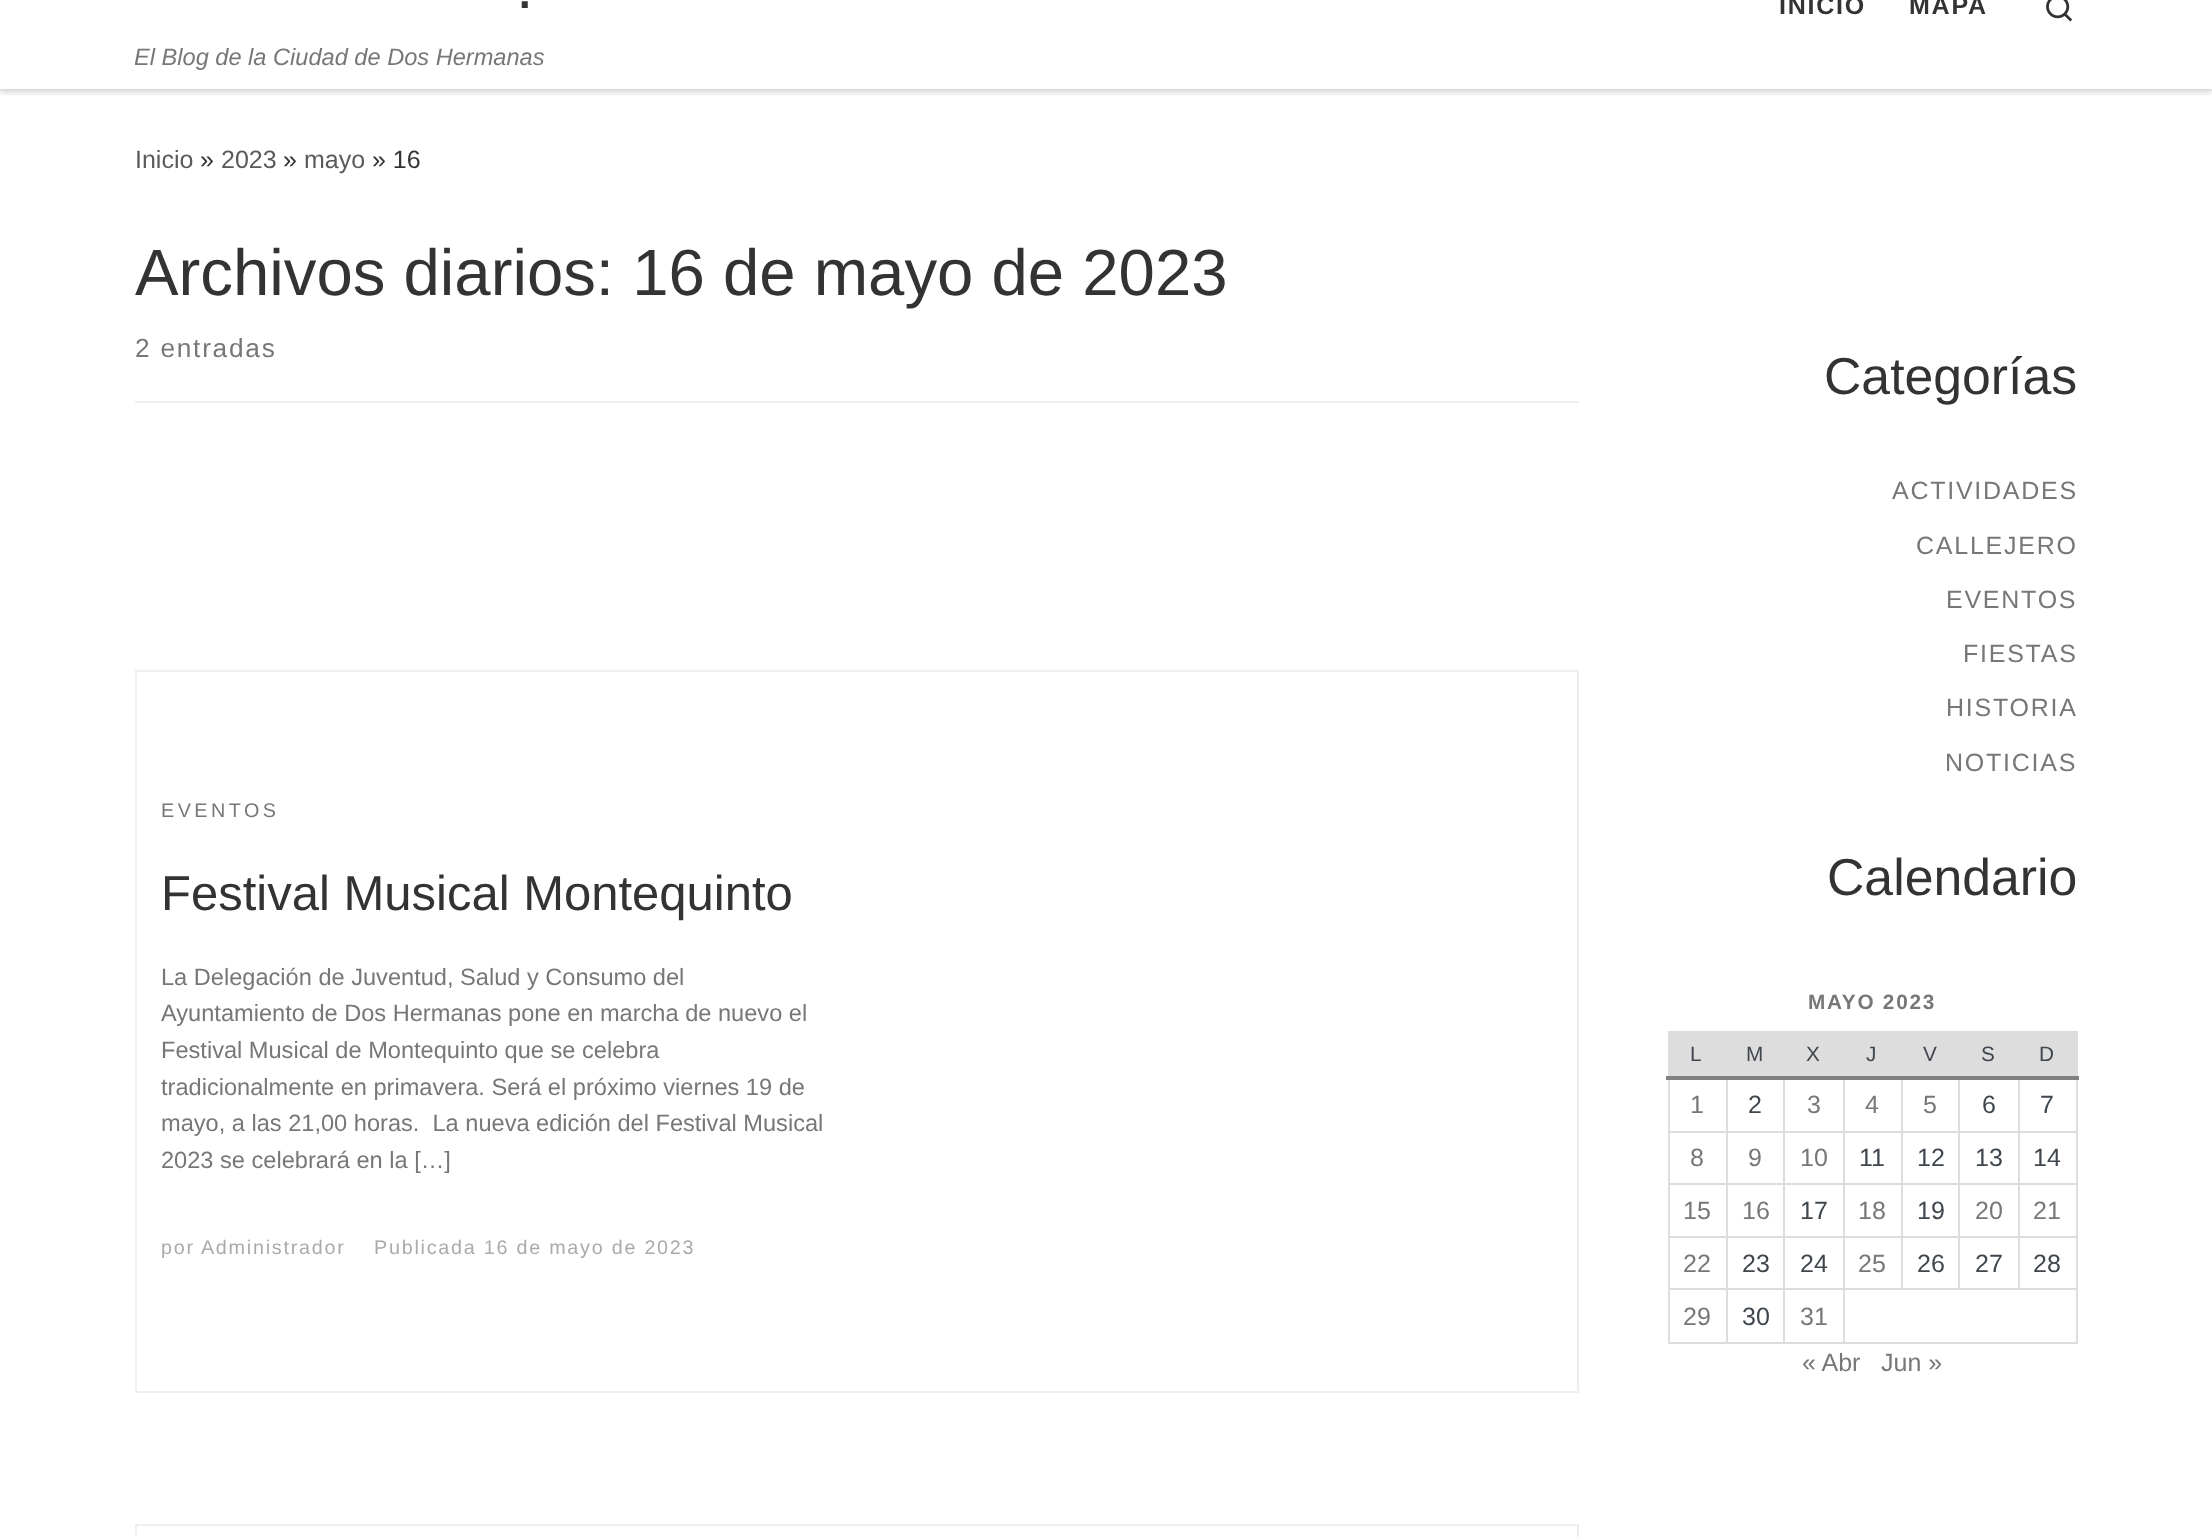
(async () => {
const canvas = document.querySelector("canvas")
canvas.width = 2212
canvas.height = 1537
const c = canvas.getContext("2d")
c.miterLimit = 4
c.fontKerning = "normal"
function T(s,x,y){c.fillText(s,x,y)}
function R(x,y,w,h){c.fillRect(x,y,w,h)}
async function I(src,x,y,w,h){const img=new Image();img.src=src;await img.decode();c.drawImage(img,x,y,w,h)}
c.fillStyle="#fff"
R(0,0,2212,1537)
c.save()
c.beginPath()
c.rect(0,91,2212,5)
c.clip()
c.fillStyle="#66666614"
c.filter="blur(2px)"
c.beginPath()
c.rect(0,-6,2212,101)
c.fill()
c.filter="none"
c.restore()
c.fillStyle="#efefef"
R(0,89,2212,2)
c.save()
c.beginPath()
c.rect(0,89,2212,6)
c.clip()
c.fillStyle="#00000033"
c.filter="blur(4.5px)"
c.beginPath()
c.rect(0,-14,2212,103)
c.fill()
c.filter="none"
c.restore()
c.font="63px Liberation Sans"
c.fillStyle="#333"
T(".",516,8)
c.save()
c.beginPath()
c.rect(135,0,518,89)
c.clip()
c.font="italic 23.6px Liberation Sans"
c.fillStyle="#777"
T("El Blog de la Ciudad de Dos Hermanas",134,65)
c.restore()
c.letterSpacing="1.75px"
c.font="bold 25px Liberation Sans"
T("INICIO",1779,14)
T("MAPA",1909,14)
await I("1.png",2046,0,27,22)
c.letterSpacing="0px"
c.font="25px Liberation Sans"
c.fillStyle="#5a5a5a"
T("Inicio",135,168)
c.fillStyle="#333"
T("»",200,168)
c.fillStyle="#5a5a5a"
T("2023",221,168)
c.fillStyle="#333"
T("»",283,168)
c.fillStyle="#5a5a5a"
T("mayo",304,168)
c.fillStyle="#333"
T("» 16",372,168)
c.font="65.3px Liberation Sans"
T("Archivos diarios: 16 de mayo de 2023",135,295)
c.letterSpacing="1.75px"
c.font="26.25px Liberation Sans"
c.fillStyle="#777"
T("2 entradas",135,357)
c.fillStyle="#eceeef"
R(135,401,1444,2)
c.strokeStyle="#efefef"
c.lineWidth=2
c.strokeRect(136,671,1442,721)
c.letterSpacing="3.5px"
c.font="19.75px Liberation Sans"
c.fillStyle="#777"
T("EVENTOS",161,817)
c.letterSpacing="0px"
c.font="49px Liberation Sans"
c.fillStyle="#333"
T("Festival Musical Montequinto",161,910)
c.font="23.6px Liberation Sans"
c.fillStyle="#777"
T("La Delegación de Juventud, Salud y Consumo del",161,985)
T("Ayuntamiento de Dos Hermanas pone en marcha de nuevo el",161,1021)
T("Festival Musical de Montequinto que se celebra",161,1058)
T("tradicionalmente en primavera. Será el próximo viernes 19 de",161,1095)
T("mayo, a las 21,00 horas.  La nueva edición del Festival Musical",161,1131)
T("2023 se celebrará en la […]",161,1168)
c.letterSpacing="1.75px"
c.font="19.75px Liberation Sans"
c.fillStyle="#aaa"
T("por Administrador",161,1254)
T("Publicada 16 de mayo de 2023",374,1254)
c.strokeRect(136,1525,1442,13)
c.letterSpacing="0px"
c.font="51.75px Liberation Sans"
c.fillStyle="#333"
T("Categorías",1824,394)
c.letterSpacing="1.75px"
c.font="25px Liberation Sans"
c.fillStyle="#777"
T("ACTIVIDADES",1892,499)
T("CALLEJERO",1916,554)
T("EVENTOS",1946,608)
T("FIESTAS",1963,662)
T("HISTORIA",1946,716)
T("NOTICIAS",1945,771)
c.letterSpacing="0px"
c.font="51.75px Liberation Sans"
c.fillStyle="#333"
T("Calendario",1827,895)
c.letterSpacing="1.75px"
c.font="bold 20.75px Liberation Sans"
c.fillStyle="#777"
T("MAYO 2023",1808,1009)
c.fillStyle="#ddd"
R(1668,1031,409,2)
R(2018,1131,59,2)
R(2018,1183,59,2)
R(2018,1236,59,2)
R(1843,1288,234,2)
R(2076,1288,2,56)
R(2076,1236,2,54)
R(2076,1183,2,54)
R(2076,1076,2,109)
R(2076,1031,2,47)
R(2018,1236,2,54)
R(1958,1236,62,2)
R(2018,1183,2,54)
R(1958,1183,62,2)
R(2018,1131,2,54)
R(1958,1131,62,2)
R(1958,1236,2,54)
R(1901,1236,59,2)
R(1958,1183,2,54)
R(1901,1183,59,2)
R(1958,1131,2,54)
R(1901,1131,59,2)
R(1901,1236,2,54)
R(1843,1236,59,2)
R(1901,1183,2,54)
R(1843,1183,59,2)
R(1901,1131,2,54)
R(1843,1131,59,2)
R(1843,1342,234,2)
R(1843,1288,2,56)
R(1783,1288,62,2)
R(1843,1236,2,54)
R(1783,1236,62,2)
R(1843,1183,2,54)
R(1783,1183,62,2)
R(1843,1131,2,54)
R(1783,1131,62,2)
R(1783,1342,62,2)
R(1783,1288,2,56)
R(1726,1288,59,2)
R(1783,1236,2,54)
R(1726,1236,59,2)
R(1783,1183,2,54)
R(1726,1183,59,2)
R(1783,1131,2,54)
R(1726,1131,59,2)
R(1726,1342,59,2)
R(1726,1288,2,56)
R(1668,1288,59,2)
R(1726,1236,2,54)
R(1668,1236,59,2)
R(1726,1183,2,54)
R(1668,1183,59,2)
R(1726,1131,2,54)
R(1668,1131,59,2)
R(1726,1076,2,56)
R(1783,1076,2,56)
R(1843,1076,2,56)
R(1901,1076,2,56)
R(1958,1076,2,56)
R(2018,1076,2,56)
R(1668,1342,59,2)
R(1668,1288,2,56)
R(1668,1236,2,54)
R(1668,1183,2,54)
R(1668,1076,2,109)
c.fillStyle="#808080"
R(1666,1076,413,4)
c.fillStyle="#ddd"
R(1668,1033,408,43)
c.font="20.75px Liberation Sans"
c.fillStyle="#40464d"
T("L",1690,1061)
T("M",1746,1061)
T("X",1806,1061)
T("J",1866,1061)
T("V",1923,1061)
T("S",1981,1061)
T("D",2039,1061)
c.letterSpacing="0px"
c.font="25px Liberation Sans"
c.fillStyle="#777"
T("1",1690,1113)
c.fillStyle="#40464d"
T("2",1748,1113)
c.fillStyle="#777"
T("3",1807,1113)
T("4",1865,1113)
T("5",1923,1113)
c.fillStyle="#40464d"
T("6",1982,1113)
T("7",2040,1113)
c.fillStyle="#777"
T("8",1690,1166)
T("9",1748,1166)
T("10",1800,1166)
c.fillStyle="#40464d"
T("11",1859,1166)
T("12",1917,1166)
T("13",1975,1166)
T("14",2033,1166)
c.fillStyle="#777"
T("15",1683,1219)
T("16",1742,1219)
c.fillStyle="#40464d"
T("17",1800,1219)
c.fillStyle="#777"
T("18",1858,1219)
c.fillStyle="#40464d"
T("19",1917,1219)
c.fillStyle="#777"
T("20",1975,1219)
T("21",2033,1219)
T("22",1683,1272)
c.fillStyle="#40464d"
T("23",1742,1272)
T("24",1800,1272)
c.fillStyle="#777"
T("25",1858,1272)
c.fillStyle="#40464d"
T("26",1917,1272)
T("27",1975,1272)
T("28",2033,1272)
c.fillStyle="#777"
T("29",1683,1325)
c.fillStyle="#40464d"
T("30",1742,1325)
c.fillStyle="#777"
T("31",1800,1325)
T("« Abr",1802,1371)
T("Jun »",1881,1371)
})()
